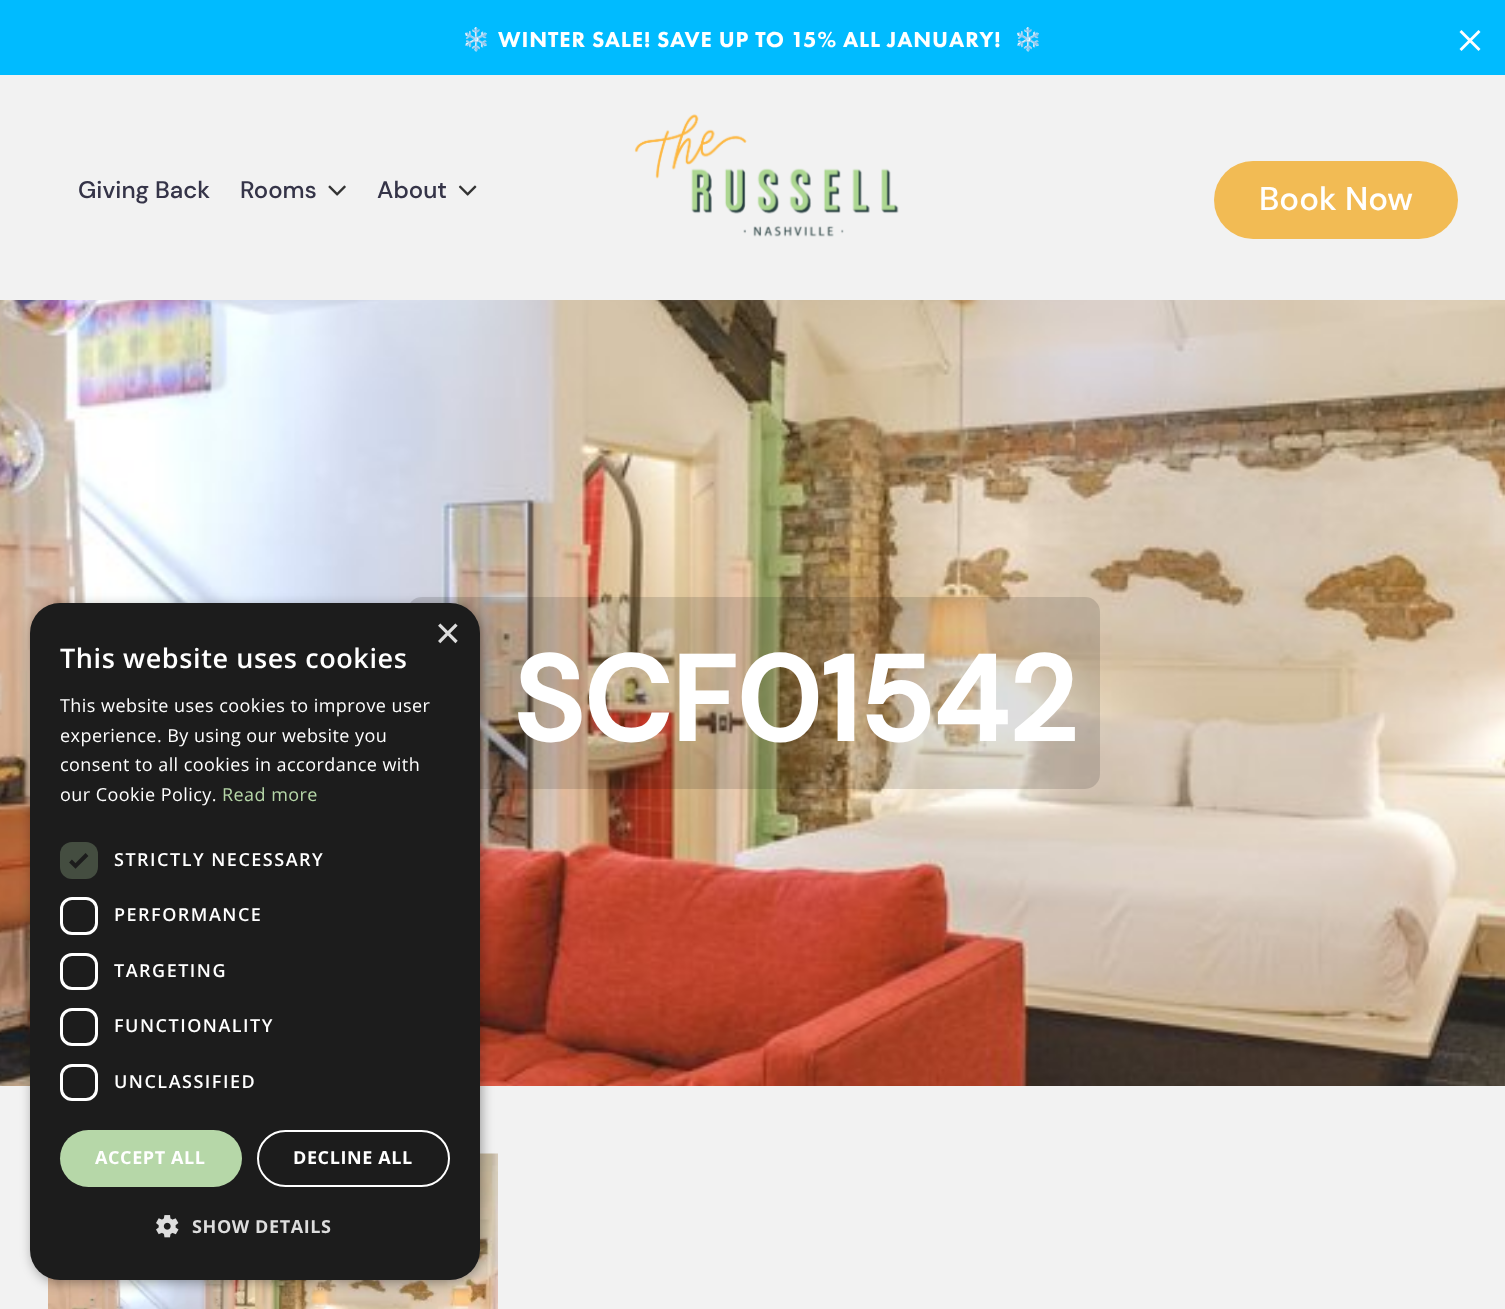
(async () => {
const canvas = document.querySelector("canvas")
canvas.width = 1505
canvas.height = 1309
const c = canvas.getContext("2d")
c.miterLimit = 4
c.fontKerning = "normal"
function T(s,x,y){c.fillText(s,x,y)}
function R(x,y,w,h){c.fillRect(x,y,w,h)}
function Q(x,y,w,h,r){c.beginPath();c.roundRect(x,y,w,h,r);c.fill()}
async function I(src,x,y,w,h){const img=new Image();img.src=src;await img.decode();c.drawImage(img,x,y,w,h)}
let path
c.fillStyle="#f2f2f2"
R(0,0,1505,1309)
c.fillStyle="#0bf"
R(0,0,1505,75)
c.letterSpacing="0.9px"
c.font="bold 22.5px Noto Color Emoji"
c.fillStyle="#fff"
T("❄️",462,47)
c.wordSpacing="-0.25px"
c.font="900 22.5px Futura PT"
T("WINTER SALE! SAVE UP TO 15% ALL JANUARY!",498,47)
c.wordSpacing="0px"
c.font="bold 22.5px Noto Color Emoji"
T("❄️",1014,47)
path = new Path2D("M1461.5 30l19 19l-2 2l-19-19z")
c.fill(path)
path = new Path2D("M1459.5 49l19-19l2 2l-19 19z")
c.fill(path)
c.letterSpacing="0px"
c.font="500 24px DM Sans"
c.fillStyle="#353448"
T("Giving Back",78,198)
T("Rooms",240,198)
await I("1.png",328,185,18,11)
T("About",377,198)
await I("2.png",458,185,19,11)
await I("3.png",634,114,265,123)
c.fillStyle="#f2bb54"
Q(1214,161,244,78,39)
c.font="500 33px DM Sans"
c.fillStyle="#fff"
T("Book Now",1259,210)
await I("4.png",0,300,1505,786)
c.fillStyle="#00000021"
Q(407,597,693,192,15)
c.font="bold 120px DM Sans"
c.fillStyle="#fff"
T("SCF01542",513,741)
await I("5.png",48,1153,450,156)
c.fillStyle="#00000059"
c.filter="blur(6px)"
c.beginPath()
c.roundRect(32,606,450,677,30)
c.fill()
c.filter="none"
c.fillStyle="#1c1c1c"
Q(30,603,450,677,30)
c.font="44px Liberation Sans"
c.fillStyle="#ddd"
T("×",435,648)
c.letterSpacing="0.6px"
c.font="600 27px Open Sans"
c.fillStyle="#fff"
T("This website uses cookies",60,668)
c.letterSpacing="0.45px"
c.font="18px Open Sans"
T("This website uses cookies to improve user",60,712)
T("experience. By using our website you",60,742)
T("consent to all cookies in accordance with",60,771)
T("our Cookie Policy.",60,801)
c.fillStyle="#b6d7a8"
T("Read more",222,801)
c.fillStyle="#444d40"
Q(60,842,38,37,12)
path = new Path2D("M70.5 861l5 5l11.5-11.5")
c.strokeStyle="#1c1c1c"
c.lineWidth=3.9
c.stroke(path)
c.letterSpacing="1.5px"
c.font="600 18px Open Sans"
c.fillStyle="#fff"
T("STRICTLY NECESSARY",114,866)
c.beginPath()
c.roundRect(61.5,898.5,35,35,10.5)
c.strokeStyle="#fff"
c.lineWidth=3
c.stroke()
T("PERFORMANCE",114,921)
c.beginPath()
c.roundRect(61.5,954.5,35,34,10.5)
c.stroke()
T("TARGETING",114,977)
c.beginPath()
c.roundRect(61.5,1009.5,35,35,10.5)
c.stroke()
T("FUNCTIONALITY",114,1032)
c.beginPath()
c.roundRect(61.5,1065.5,35,34,10.5)
c.stroke()
T("UNCLASSIFIED",114,1088)
c.fillStyle="#b6d7a8"
Q(60,1130,182,57,28.5)
c.letterSpacing="0.6px"
c.font="bold 18px Open Sans"
c.fillStyle="#fff"
T("ACCEPT ALL",95,1164)
c.beginPath()
c.roundRect(258,1131,191,55,27.5)
c.lineWidth=2
c.stroke()
T("DECLINE ALL",293,1164)
await I("6.png",156,1215,23,23)
c.fillStyle="#ddd"
T("SHOW DETAILS",192,1233)
})()
